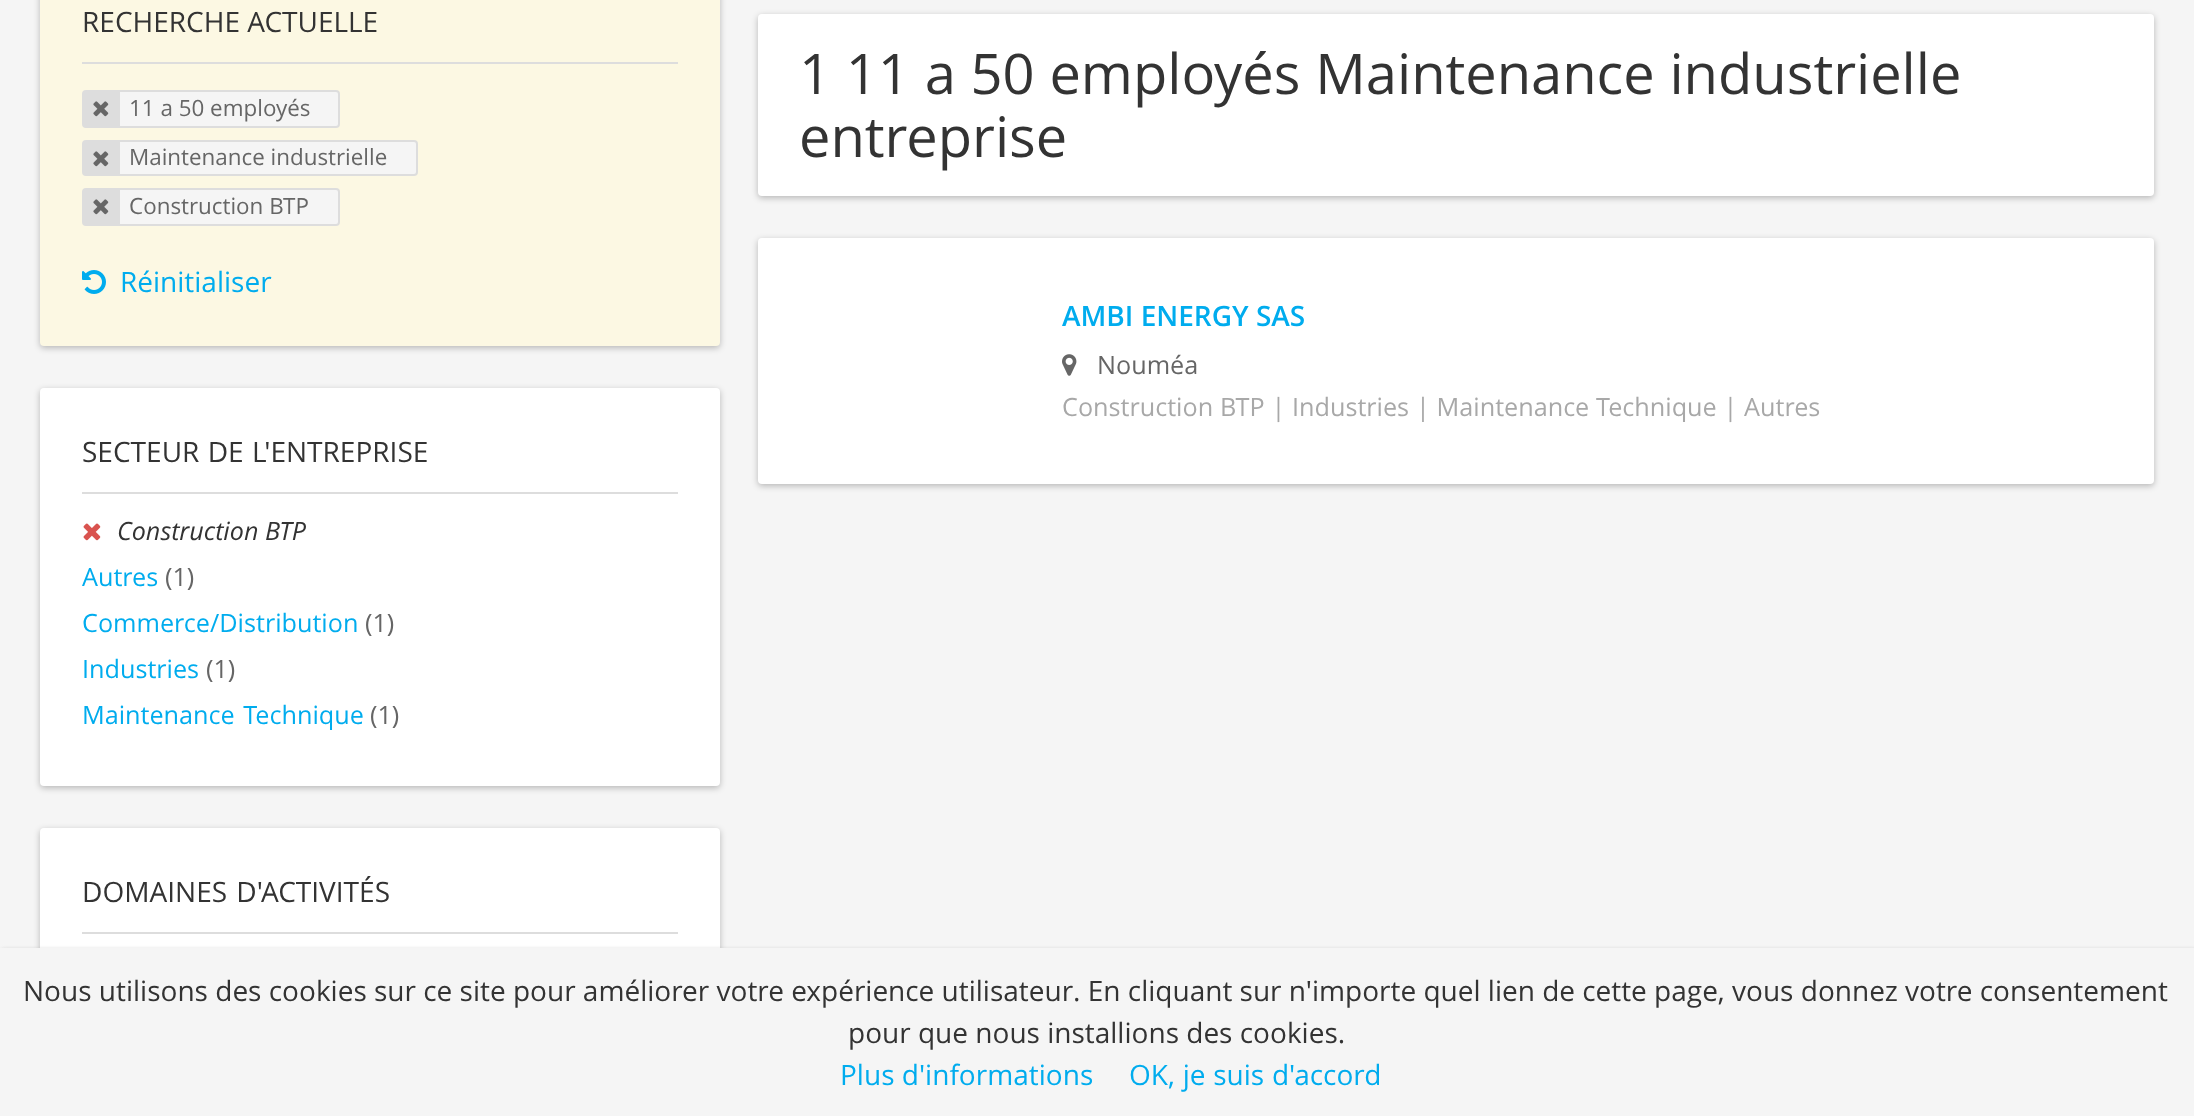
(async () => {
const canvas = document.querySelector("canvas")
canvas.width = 2194
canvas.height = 1116
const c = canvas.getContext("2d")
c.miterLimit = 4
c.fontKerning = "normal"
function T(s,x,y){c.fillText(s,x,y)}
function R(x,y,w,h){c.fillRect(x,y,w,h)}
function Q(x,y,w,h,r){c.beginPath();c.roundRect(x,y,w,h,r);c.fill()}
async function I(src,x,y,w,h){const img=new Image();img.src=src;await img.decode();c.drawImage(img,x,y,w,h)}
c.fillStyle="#f5f5f5"
R(0,0,2194,1116)
c.fillStyle="#00000040"
c.filter="blur(3px)"
c.beginPath()
c.roundRect(40,-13,680,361,4)
c.fill()
c.filter="none"
c.fillStyle="#fcf8e3"
Q(40,-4,680,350,4)
c.fillStyle="#ddd"
R(82,62,596,2)
c.font="28px Open Sans"
c.fillStyle="#333"
T("RECHERCHE ACTUELLE",82,32)
c.fillStyle="#f5f5f5"
c.beginPath()
c.roundRect(83,91,256,36,3)
c.fill()
c.strokeStyle="#ddd"
c.lineWidth=2
c.stroke()
c.fillStyle="#ddd"
R(84,92,36,34)
await I("1.png",93,101,16,16)
c.font="22.4px Open Sans"
c.fillStyle="#666"
T("11 a 50 employés",129,116)
c.fillStyle="#f5f5f5"
c.beginPath()
c.roundRect(83,141,334,34,3)
c.fill()
c.stroke()
c.fillStyle="#ddd"
R(84,142,36,32)
await I("1.png",93,151,16,16)
c.fillStyle="#666"
T("Maintenance industrielle",129,165)
c.fillStyle="#f5f5f5"
c.beginPath()
c.roundRect(83,189,256,36,3)
c.fill()
c.stroke()
c.fillStyle="#ddd"
R(84,190,36,34)
await I("1.png",93,199,16,16)
c.fillStyle="#666"
T("Construction BTP",129,214)
await I("2.png",82,270,24,24)
c.font="28px Open Sans"
c.fillStyle="#00acee"
T("Réinitialiser",120,292)
c.fillStyle="#00000040"
c.filter="blur(3px)"
c.beginPath()
c.roundRect(40,390,680,398,4)
c.fill()
c.filter="none"
c.fillStyle="#fff"
Q(40,388,680,398,4)
c.fillStyle="#ddd"
R(82,492,596,2)
c.wordSpacing="1px"
c.fillStyle="#333"
T("SECTEUR DE L'ENTREPRISE",82,462)
await I("3.png",83,523,18,18)
c.wordSpacing="0px"
c.font="italic 25.2px Open Sans"
T("Construction BTP",117,540)
c.font="25.2px Open Sans"
c.fillStyle="#00acee"
T("Autres",82,586)
c.fillStyle="#666"
T("(1)",165,586)
c.fillStyle="#00acee"
T("Commerce/Distribution",82,632)
c.fillStyle="#666"
T("(1)",365,632)
c.fillStyle="#00acee"
T("Industries",82,678)
c.fillStyle="#666"
T("(1)",206,678)
c.wordSpacing="2px"
c.fillStyle="#00acee"
T("Maintenance Technique",82,724)
c.wordSpacing="0px"
c.fillStyle="#666"
T("(1)",370,724)
c.fillStyle="#00000040"
c.filter="blur(3px)"
c.beginPath()
c.roundRect(40,830,680,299,4)
c.fill()
c.filter="none"
c.fillStyle="#fff"
Q(40,828,680,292,4)
c.fillStyle="#ddd"
R(82,932,596,2)
c.wordSpacing="2px"
c.font="28px Open Sans"
c.fillStyle="#333"
T("DOMAINES D'ACTIVITÉS",82,902)
c.fillStyle="#00000040"
c.filter="blur(3px)"
c.beginPath()
c.roundRect(758,16,1396,182,4)
c.fill()
c.filter="none"
c.fillStyle="#fff"
Q(758,14,1396,182,4)
c.wordSpacing="0.25px"
c.font="56px Open Sans"
c.fillStyle="#333"
T("1 11 a 50 employés Maintenance industrielle",799,94)
c.wordSpacing="0px"
T("entreprise",799,157)
c.fillStyle="#00000040"
c.filter="blur(3px)"
c.beginPath()
c.roundRect(758,240,1396,246,4)
c.fill()
c.filter="none"
c.fillStyle="#fff"
Q(758,238,1396,246,4)
c.font="600 28px Open Sans"
c.fillStyle="#00acee"
T("AMBI ENERGY SAS",1062,326)
await I("4.png",1062,354,15,22)
c.font="25.2px Open Sans"
c.fillStyle="#666"
T("Nouméa",1097,374)
c.wordSpacing="0.25px"
c.fillStyle="#a8a8a8"
T("Construction BTP | Industries | Maintenance Technique | Autres",1062,416)
c.filter="blur(2px)"
c.beginPath()
c.rect(2,950,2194,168)
c.fill()
c.filter="none"
c.fillStyle="#f5f5f5"
R(0,948,2194,168)
c.wordSpacing="0px"
c.font="28px Open Sans"
c.fillStyle="#333"
T("Nous utilisons des cookies sur ce site pour améliorer votre expérience utilisateur. En cliquant sur n'importe quel lien de cette page, vous donnez votre consentement",23,1001)
T("pour que nous installions des cookies.",848,1043)
c.fillStyle="#00acee"
T("Plus d'informations",840,1085)
c.wordSpacing="0.5px"
T("OK, je suis d'accord",1129,1085)
})()
